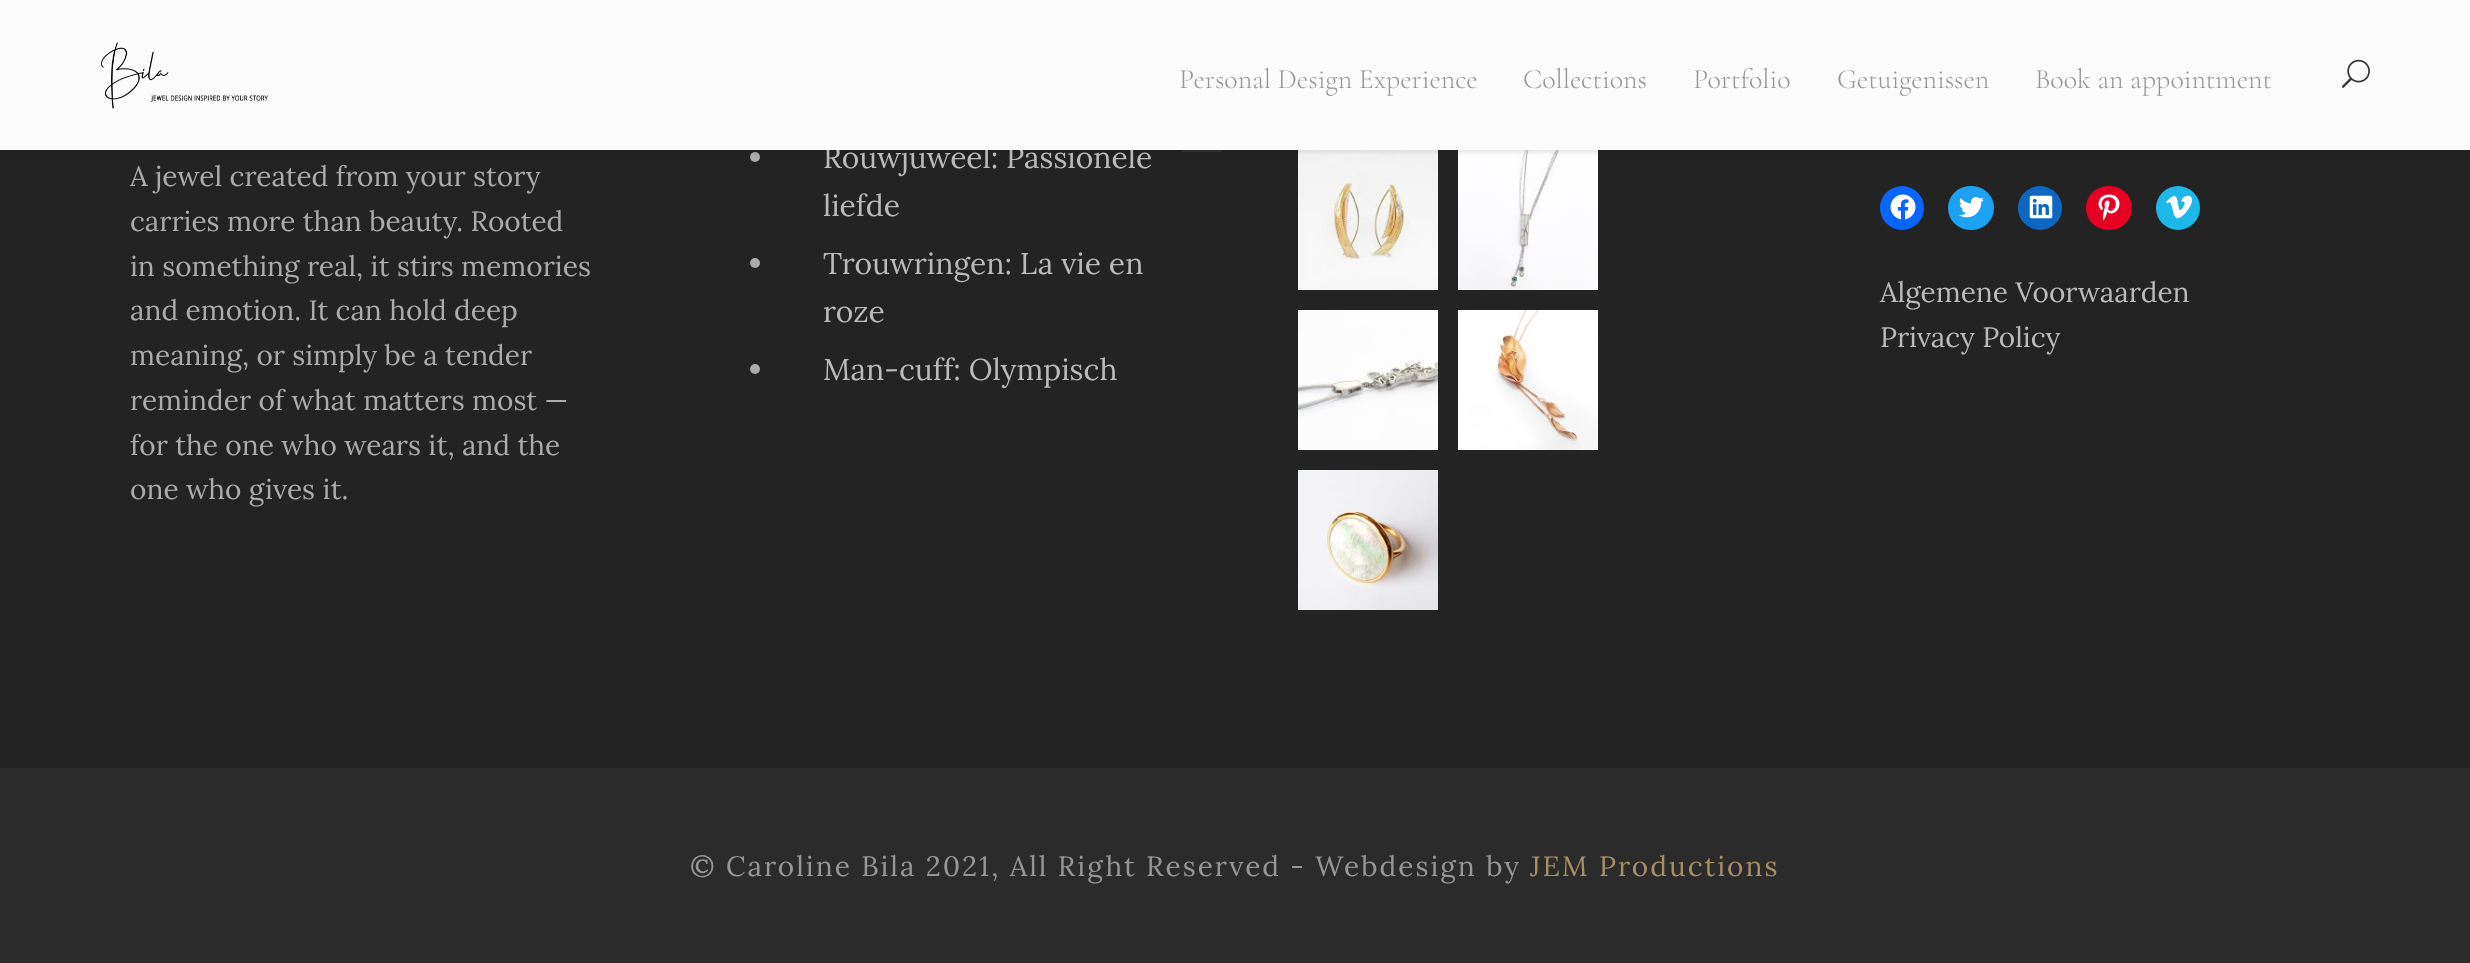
(async () => {
const canvas = document.querySelector("canvas")
canvas.width = 2470
canvas.height = 963
const c = canvas.getContext("2d")
c.miterLimit = 4
c.fontKerning = "normal"
function T(s,x,y){c.fillText(s,x,y)}
function R(x,y,w,h){c.fillRect(x,y,w,h)}
function Q(x,y,w,h,r){c.beginPath();c.roundRect(x,y,w,h,r);c.fill()}
async function I(src,x,y,w,h){const img=new Image();img.src=src;await img.decode();c.drawImage(img,x,y,w,h)}
c.fillStyle="#232323"
R(0,0,2470,963)
c.fillStyle="#ababab"
c.beginPath()
c.arc(755,157,5,0,7)
c.fill()
await I("3.png",1298,150,140,140)
await I("4.png",1458,150,140,140)
c.fillStyle="#0000001a"
c.filter="blur(2px)"
c.beginPath()
c.rect(0,2,2470,150)
c.fill()
c.filter="none"
c.font="30px Lora"
c.fillStyle="#bababa"
T("Rouwjuweel: Passionele",823,168)
c.fillStyle="#fbfbfb"
R(0,0,2470,150)
await I("1.png",100,42,168,67)
c.font="300 28px Cormorant Garamond"
c.fillStyle="#969696"
T("Personal Design Experience",1179,88)
T("Collections",1523,88)
T("Portfolio",1693,88)
T("Getuigenissen",1837,88)
T("Book an appointment",2035,88)
c.fillStyle="#2d2d2d"
R(1182,150,40,2)
await I("2.png",2341,59,29,29)
c.font="28px Lora"
c.fillStyle="#ababab"
T("A jewel created from your story",130,186)
T("carries more than beauty. Rooted",130,231)
T("in something real, it stirs memories",130,276)
T("and emotion. It can hold deep",130,320)
T("meaning, or simply be a tender",130,365)
T("reminder of what matters most —",130,410)
T("for the one who wears it, and the",130,455)
T("one who gives it.",130,499)
c.font="30px Lora"
c.fillStyle="#bababa"
T("liefde",823,216)
c.fillStyle="#ababab"
c.beginPath()
c.arc(755,263,5,0,7)
c.fill()
c.fillStyle="#bababa"
T("Trouwringen: La vie en",823,274)
T("roze",823,322)
c.fillStyle="#ababab"
c.beginPath()
c.arc(755,369,5,0,7)
c.fill()
c.fillStyle="#bababa"
T("Man-cuff: Olympisch",823,380)
await I("5.png",1298,310,140,140)
await I("6.png",1458,310,140,140)
await I("7.png",1298,470,140,140)
c.fillStyle="#0866ff"
c.beginPath()
c.arc(1902,208,22,0,7)
c.fill()
await I("8.png",1890,194,26,26)
c.fillStyle="#1da1f2"
Q(1948,186,46,44,22)
await I("9.png",1959,197,25,21)
c.fillStyle="#0d66c2"
c.beginPath()
c.arc(2040,208,22,0,7)
c.fill()
await I("10.png",2029,195,24,24)
c.fillStyle="#e60122"
Q(2086,186,46,44,22)
await I("11.png",2098,194,22,27)
c.fillStyle="#1eb7ea"
c.beginPath()
c.arc(2178,208,22,0,7)
c.fill()
await I("12.png",2166,195,26,24)
c.font="28px Lora"
c.fillStyle="#bababa"
T("Algemene Voorwaarden",1880,302)
T("Privacy Policy",1880,347)
c.fillStyle="#2b2b2b"
R(0,768,2470,195)
c.letterSpacing="2px"
c.fillStyle="#969696"
T("© Caroline Bila 2021, All Right Reserved - Webdesign by",690,876)
c.fillStyle="#a78e65"
T("JEM Productions",1530,876)
})()
